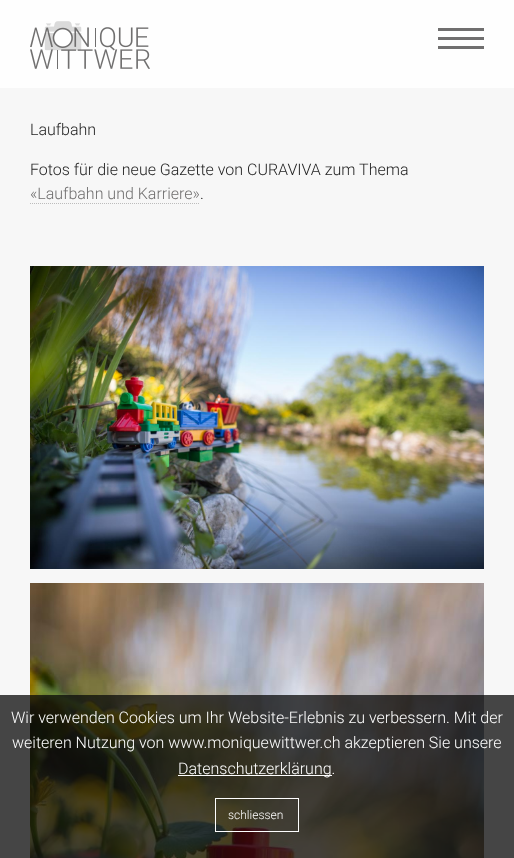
(async () => {
const canvas = document.querySelector("canvas")
canvas.width = 514
canvas.height = 858
const c = canvas.getContext("2d")
c.miterLimit = 4
c.fontKerning = "normal"
function T(s,x,y){c.fillText(s,x,y)}
function R(x,y,w,h){c.fillRect(x,y,w,h)}
async function I(src,x,y,w,h){const img=new Image();img.src=src;await img.decode();c.drawImage(img,x,y,w,h)}
let path
c.fillStyle="#f7f7f7"
R(0,0,514,858)
c.fillStyle="#fefefe"
R(0,0,514,88)
await I("1.png",30,21,120,48)
c.fillStyle="#706f6f"
R(438,28,46,3)
R(438,37,46,3)
R(438,46,46,3)
c.font="300 16px Roboto"
c.fillStyle="#242424"
T("Laufbahn",30,135)
T("Fotos für die neue Gazette von CURAVIVA zum Thema",30,175)
c.fillStyle="#706f6f"
T("«Laufbahn und Karriere»",30,199)
path = new Path2D("M30 203.5h170")
c.strokeStyle="#bcbcbc"
c.setLineDash([1,1])
c.stroke(path)
c.fillStyle="#242424"
T(".",200,199)
await I("2.png",30,266,454,303)
await I("3.png",30,583,454,275)
c.fillStyle="#0a0a0abf"
R(0,695,514,163)
c.fillStyle="#fefefe"
T("Wir verwenden Cookies um Ihr Website-Erlebnis zu verbessern. Mit der",11,723)
T("weiteren Nutzung von www.moniquewittwer.ch akzeptieren Sie unsere",12,748)
R(178,775,154,1)
T("Datenschutzerklärung.",178,774)
c.strokeStyle="#fefefe"
c.setLineDash([])
c.strokeRect(215.5,798.5,83,33)
c.font="300 12px Roboto"
T("schliessen",228,819)
})()
